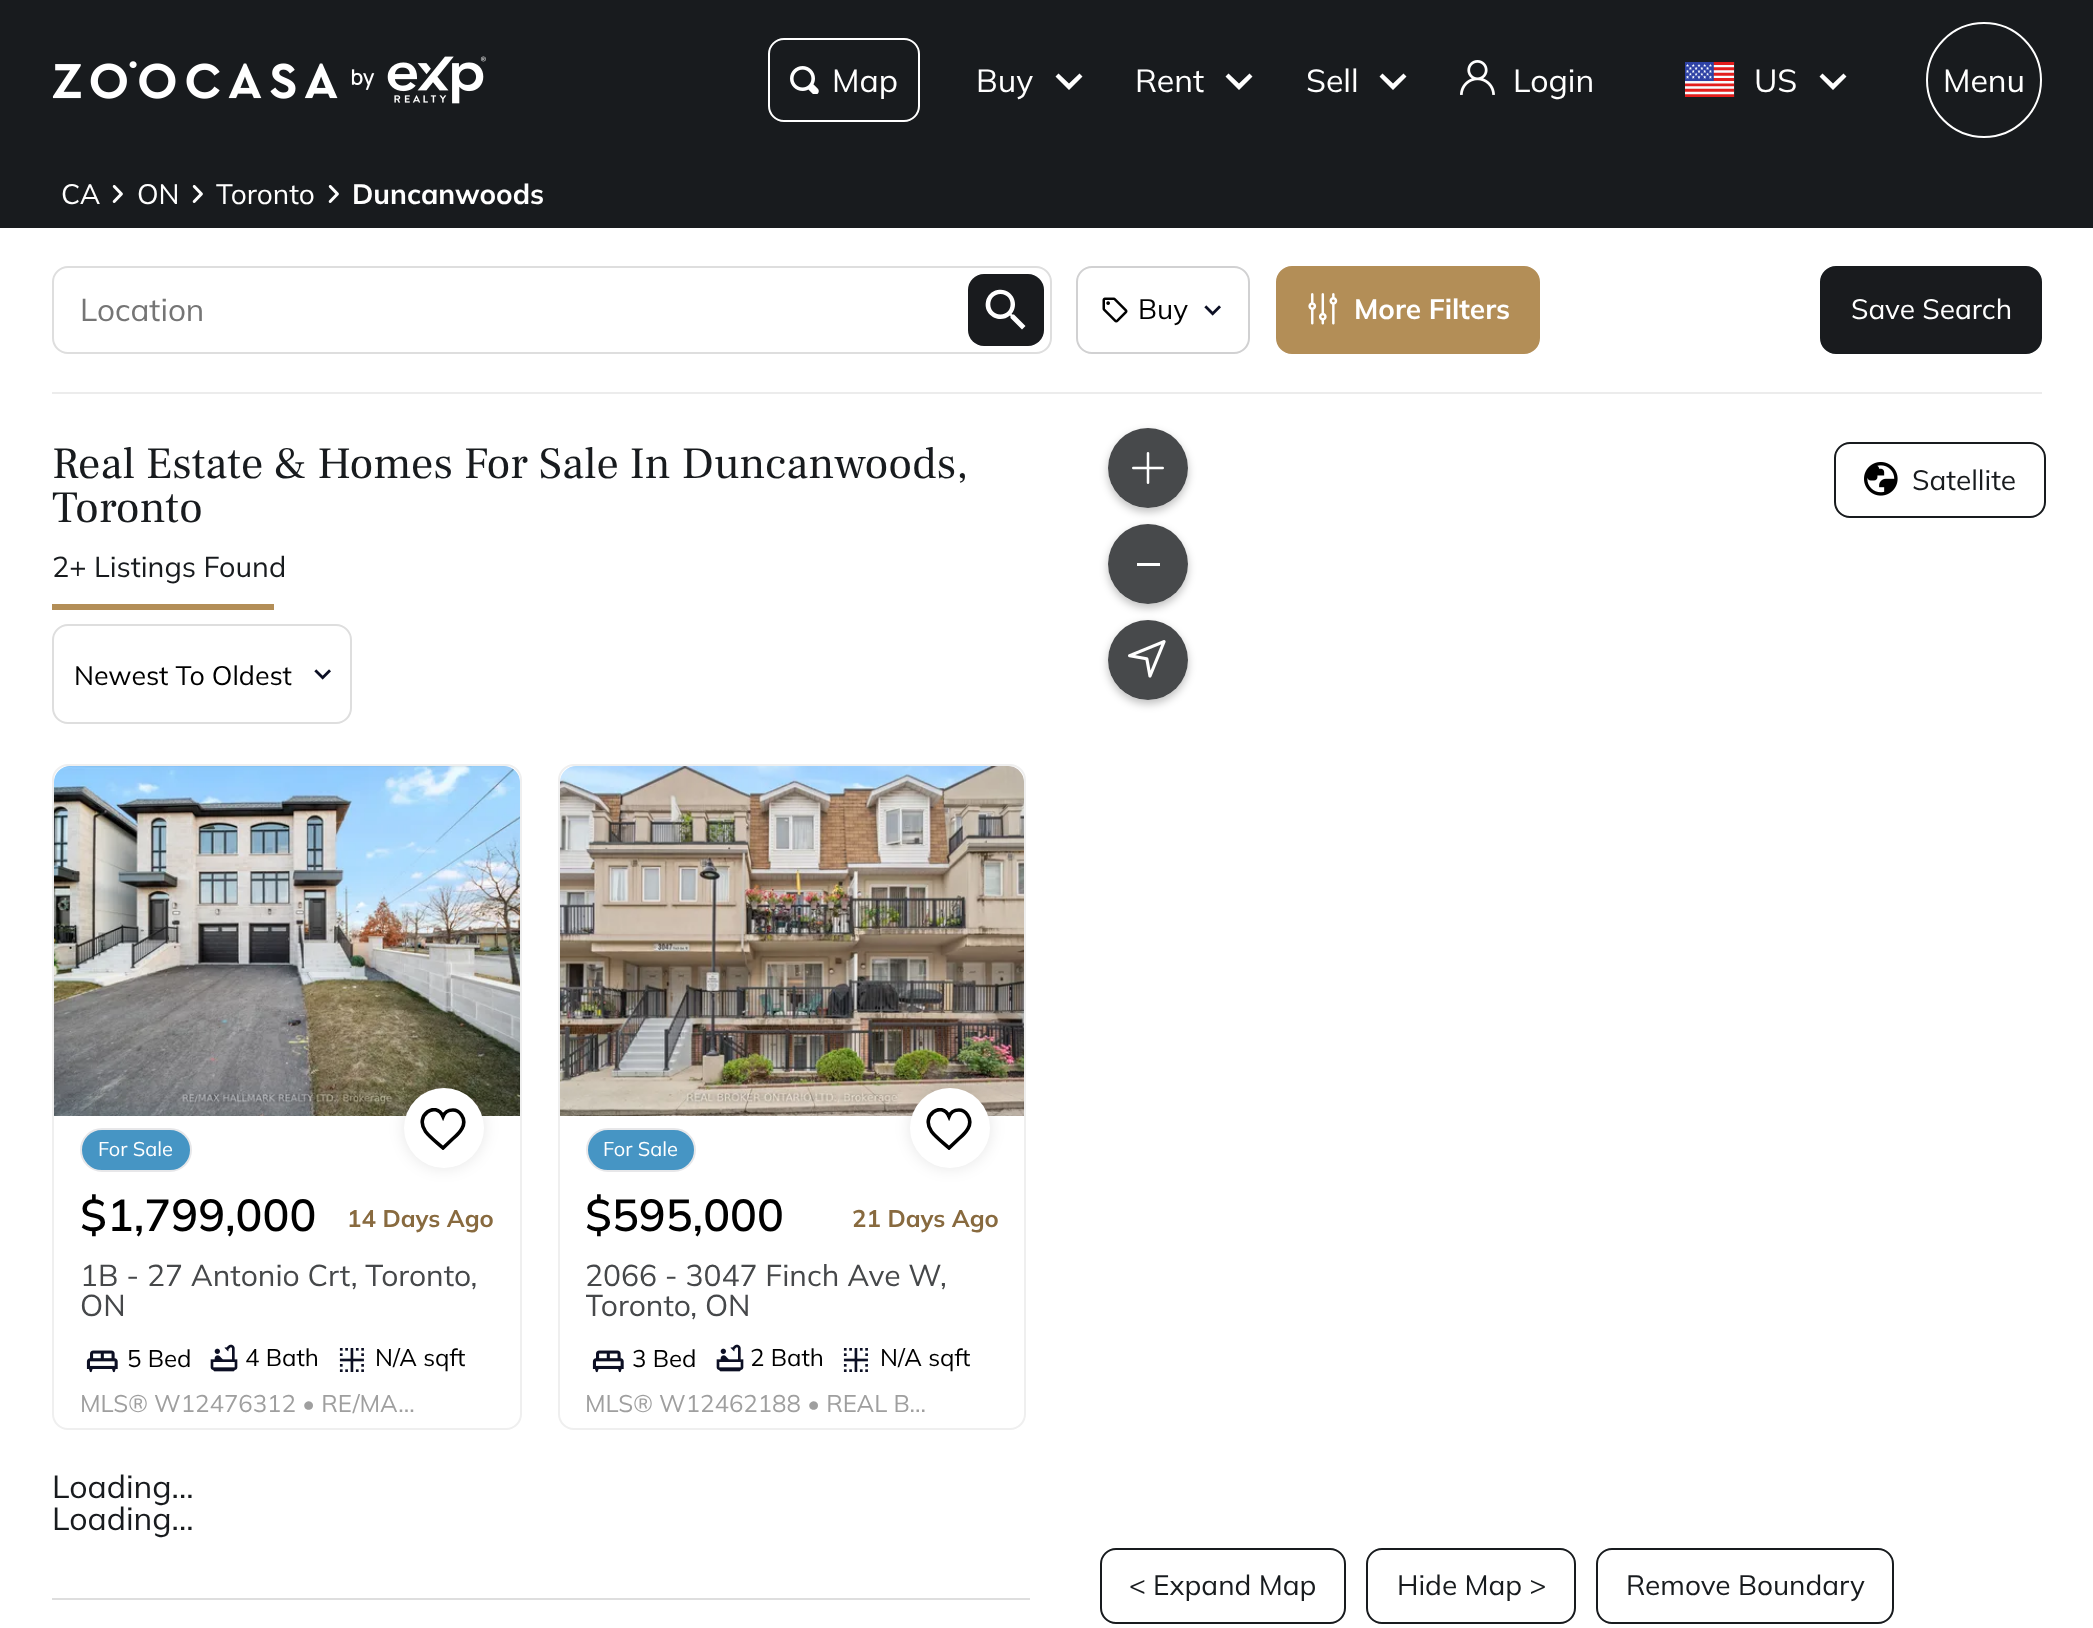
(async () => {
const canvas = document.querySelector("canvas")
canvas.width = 2093
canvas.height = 1628
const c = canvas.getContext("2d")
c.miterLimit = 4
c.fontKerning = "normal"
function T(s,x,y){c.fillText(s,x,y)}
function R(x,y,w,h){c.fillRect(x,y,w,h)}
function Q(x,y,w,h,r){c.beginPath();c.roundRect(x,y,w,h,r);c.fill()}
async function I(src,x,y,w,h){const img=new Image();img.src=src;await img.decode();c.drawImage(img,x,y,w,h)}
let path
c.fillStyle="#181b1e"
R(0,0,2093,1628)
await I("1.png",52,56,434,48)
c.beginPath()
c.roundRect(769,39,150,82,15)
c.strokeStyle="#fff"
c.lineWidth=2
c.stroke()
await I("2.png",790,66,29,28)
c.font="200 32px Mulish"
c.fillStyle="#fff"
T("Map",832,92)
T("Buy",976,92)
path = new Path2D("M1079.5 73.5l-10.5 10l-10.5-10l-3 3l13.5 13.5l13.5-13.5z")
c.fill(path)
T("Rent",1135,92)
path = new Path2D("M1249.5 73.5l-10.5 10l-10.5-10l-3 3l13.5 13.5l13.5-13.5z")
c.fill(path)
T("Sell",1306,92)
path = new Path2D("M1403.5 73.5l-10.5 10l-10.5-10l-3 3l13.5 13.5l13.5-13.5z")
c.fill(path)
await I("3.png",1460,60,35,35)
T("Login",1513,92)
await I("4.png",1685,62,50,35)
T("US",1754,92)
path = new Path2D("M1843.5 73.5l-10.5 10l-10.5-10l-3 3l13.5 13.5l13.5-13.5z")
c.fill(path)
c.beginPath()
c.arc(1984,80,57,0,7)
c.stroke()
T("Menu",1943,92)
R(0,228,2093,1400)
c.font="200 28px Mulish"
T("CA",61,204)
await I("5.png",112,185,11,18)
T("ON",137,204)
await I("5.png",192,185,11,18)
T("Toronto",216,204)
await I("5.png",328,185,11,18)
c.font="200 28px 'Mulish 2'"
T("Duncanwoods",352,204)
c.fillStyle="#ececec"
R(52,392,1990,2)
c.beginPath()
c.roundRect(53,267,998,86,15)
c.strokeStyle="#dedede"
c.stroke()
c.font="200 31.5px Mulish"
c.fillStyle="#757575"
T("Location",80,321)
c.fillStyle="#191b1e"
Q(968,274,76,72,16)
c.fillStyle="#fff"
path = new Path2D("M1014 314.5h-1.5l-1-.5c9-10.5 0-27-14-24c-3 .5-5.5 2-7.5 4c-2 2-3.5 4.5-4 7.5c-3 13.5 13.5 23 24 14l.5 .5v2l11.5 11.5l3.5-3.5zm-13.5 0c-13.5 0-13.5-20.5 0-20.5c13.5 0 13.5 20.5 0 20.5z")
c.fill(path)
c.beginPath()
c.roundRect(1077,267,172,86,15)
c.strokeStyle="#d1d1d2"
c.stroke()
await I("6.png",1102,297,26,26)
c.font="200 28px Mulish"
c.fillStyle="#000"
T("Buy",1138,319)
await I("7.png",1204,305,17,11)
c.fillStyle="#b38e57"
c.beginPath()
c.roundRect(1277,267,262,86,15)
c.fill()
c.strokeStyle="#b38e57"
c.stroke()
await I("8.png",1308,293,30,32)
c.font="200 28px 'Mulish 2'"
c.fillStyle="#fff"
T("More Filters",1354,319)
c.fillStyle="#191b1e"
c.beginPath()
c.roundRect(1821,267,220,86,15)
c.fill()
c.strokeStyle="#181b1e"
c.stroke()
c.font="200 28px Mulish"
c.fillStyle="#fff"
T("Save Search",1851,319)
c.font="44.8px Frank Ruhl Libre"
c.fillStyle="#181b1e"
T("Real Estate & Homes For Sale In Duncanwoods,",52,478)
T("Toronto",52,522)
c.font="200 28.75px Mulish"
T("2+ Listings Found",52,577)
c.fillStyle="#b38e57"
R(52,604,222,6)
c.beginPath()
c.roundRect(53,625,298,98,15)
c.strokeStyle="#dedede"
c.stroke()
c.font="200 26.75px Mulish"
c.fillStyle="#000"
T("Newest To Oldest",74,685)
await I("7.png",314,669,17,11)
c.beginPath()
c.roundRect(53,765,468,664,15)
c.strokeStyle="#efefef"
c.stroke()
await I("9.png",54,766,466,350)
c.fillStyle="#4695c4"
c.beginPath()
c.roundRect(81,1129,110,42,21)
c.fill()
c.strokeStyle="#e7e7e9"
c.stroke()
c.font="200 20px Mulish"
c.fillStyle="#fff"
T("For Sale",98,1156)
c.fillStyle="#0000001a"
c.filter="blur(8px)"
c.beginPath()
c.roundRect(404,1088,80,80,40)
c.fill()
c.filter="none"
c.fillStyle="#fff"
c.beginPath()
c.arc(444,1128,40,0,7)
c.fill()
c.save()
c.beginPath()
c.rect(418,1108,50,42)
c.clip()
path = new Path2D("M453 1110c3.5 0 6.5 2 8.5 5c6.5 9.5-2 18-9 24l-9.5 9c-5.5-5-13.5-11-17.5-16.5c-11.5-16 10.5-31 17.5-15c1.5-4 5.5-6.5 10-6.5z")
c.strokeStyle="#000"
c.lineWidth=3.6
c.stroke(path)
c.restore()
c.font="200 44.8px 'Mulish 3'"
c.fillStyle="#000"
T("$1,799,000",80,1231)
c.font="200 24px 'Mulish 2'"
c.fillStyle="#886a3f"
T("14 Days Ago",347,1227)
c.font="200 30px Mulish"
c.fillStyle="#46484a"
T("1B - 27 Antonio Crt, Toronto,",80,1286)
T("ON",80,1316)
await I("10.png",86,1350,32,23)
c.font="200 24px Mulish"
c.fillStyle="#000"
T("5 Bed",127,1367)
await I("11.png",210,1344,28,28)
T("4 Bath",245,1366)
await I("12.png",339,1348,25,24)
T("N/A sqft",375,1366)
c.fillStyle="#9f9f9f"
T("MLS® W12476312 • RE/MA…",80,1412)
c.beginPath()
c.roundRect(559,765,466,664,15)
c.strokeStyle="#efefef"
c.stroke()
await I("13.png",560,766,464,350)
c.fillStyle="#4695c4"
c.beginPath()
c.roundRect(587,1129,108,42,21)
c.fill()
c.strokeStyle="#e7e7e9"
c.stroke()
c.font="200 20px Mulish"
c.fillStyle="#fff"
T("For Sale",603,1156)
c.fillStyle="#0000001a"
c.filter="blur(8px)"
c.beginPath()
c.roundRect(910,1088,80,80,40)
c.fill()
c.filter="none"
c.fillStyle="#fff"
c.beginPath()
c.arc(950,1128,40,0,7)
c.fill()
c.save()
c.beginPath()
c.rect(924,1108,50,42)
c.clip()
path = new Path2D("M959 1110c3.5 0 6.5 2 8.5 5c6.5 9.5-2 18-9 24l-9.5 9c-5.5-5-13.5-11-17.5-16.5c-11.5-16 10.5-31 17.5-15c1.5-4 5.5-6.5 10-6.5z")
c.strokeStyle="#000"
c.lineWidth=3.6
c.stroke(path)
c.restore()
c.font="200 44.8px 'Mulish 3'"
c.fillStyle="#000"
T("$595,000",585,1231)
c.font="200 24px 'Mulish 2'"
c.fillStyle="#886a3f"
T("21 Days Ago",852,1227)
c.font="200 30px Mulish"
c.fillStyle="#46484a"
T("2066 - 3047 Finch Ave W,",585,1286)
c.save()
c.beginPath()
c.rect(586,1246,414,90)
c.clip()
T("Toronto, ON",585,1316)
c.restore()
await I("10.png",592,1350,32,23)
c.font="200 24px Mulish"
c.fillStyle="#000"
T("3 Bed",632,1367)
await I("11.png",716,1344,28,28)
T("2 Bath",750,1366)
await I("12.png",843,1348,25,24)
T("N/A sqft",880,1366)
c.fillStyle="#9f9f9f"
T("MLS® W12462188 • REAL B…",585,1412)
c.font="200 32px Mulish"
c.fillStyle="#181b1e"
T("Loading...",52,1498)
T("Loading...",52,1530)
c.fillStyle="#dedede"
R(52,1598,978,2)
c.save()
path = new Path2D("M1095 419h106v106h-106zm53 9c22 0 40 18 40 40c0 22-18 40-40 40c-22 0-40-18-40-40c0-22 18-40 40-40z")
c.clip(path,"evenodd")
c.fillStyle="#00000040"
c.filter="blur(4px)"
c.beginPath()
c.roundRect(1108,432,80,80,40)
c.fill()
c.filter="none"
c.restore()
c.fillStyle="#191b1ecc"
c.beginPath()
c.arc(1148,468,40,0,7)
c.fill()
await I("14.png",1132,452,32,32)
c.save()
path = new Path2D("M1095 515h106v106h-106zm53 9c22 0 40 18 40 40c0 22-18 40-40 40c-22 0-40-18-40-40c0-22 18-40 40-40z")
c.clip(path,"evenodd")
c.fillStyle="#00000040"
c.filter="blur(4px)"
c.beginPath()
c.roundRect(1108,528,80,80,40)
c.fill()
c.filter="none"
c.restore()
c.beginPath()
c.arc(1148,564,40,0,7)
c.fill()
c.fillStyle="#fff"
R(1137,563,23,3)
c.save()
path = new Path2D("M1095 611h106v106h-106zm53 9c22 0 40 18 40 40c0 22-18 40-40 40c-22 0-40-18-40-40c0-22 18-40 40-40z")
c.clip(path,"evenodd")
c.fillStyle="#00000040"
c.filter="blur(4px)"
c.beginPath()
c.roundRect(1108,624,80,80,40)
c.fill()
c.filter="none"
c.restore()
c.fillStyle="#191b1ecc"
c.beginPath()
c.arc(1148,660,40,0,7)
c.fill()
await I("15.png",1128,640,38,38)
c.beginPath()
c.roundRect(1835,443,210,74,15)
c.strokeStyle="#181b1e"
c.stroke()
await I("16.png",1864,462,34,34)
c.font="200 28px Mulish"
c.fillStyle="#181b1e"
T("Satellite",1912,490)
c.beginPath()
c.roundRect(1101,1549,244,74,15)
c.stroke()
T("< Expand Map",1129,1595)
c.beginPath()
c.roundRect(1367,1549,208,74,15)
c.stroke()
T("Hide Map >",1397,1595)
c.beginPath()
c.roundRect(1597,1549,296,74,15)
c.stroke()
T("Remove Boundary",1626,1595)
})()
